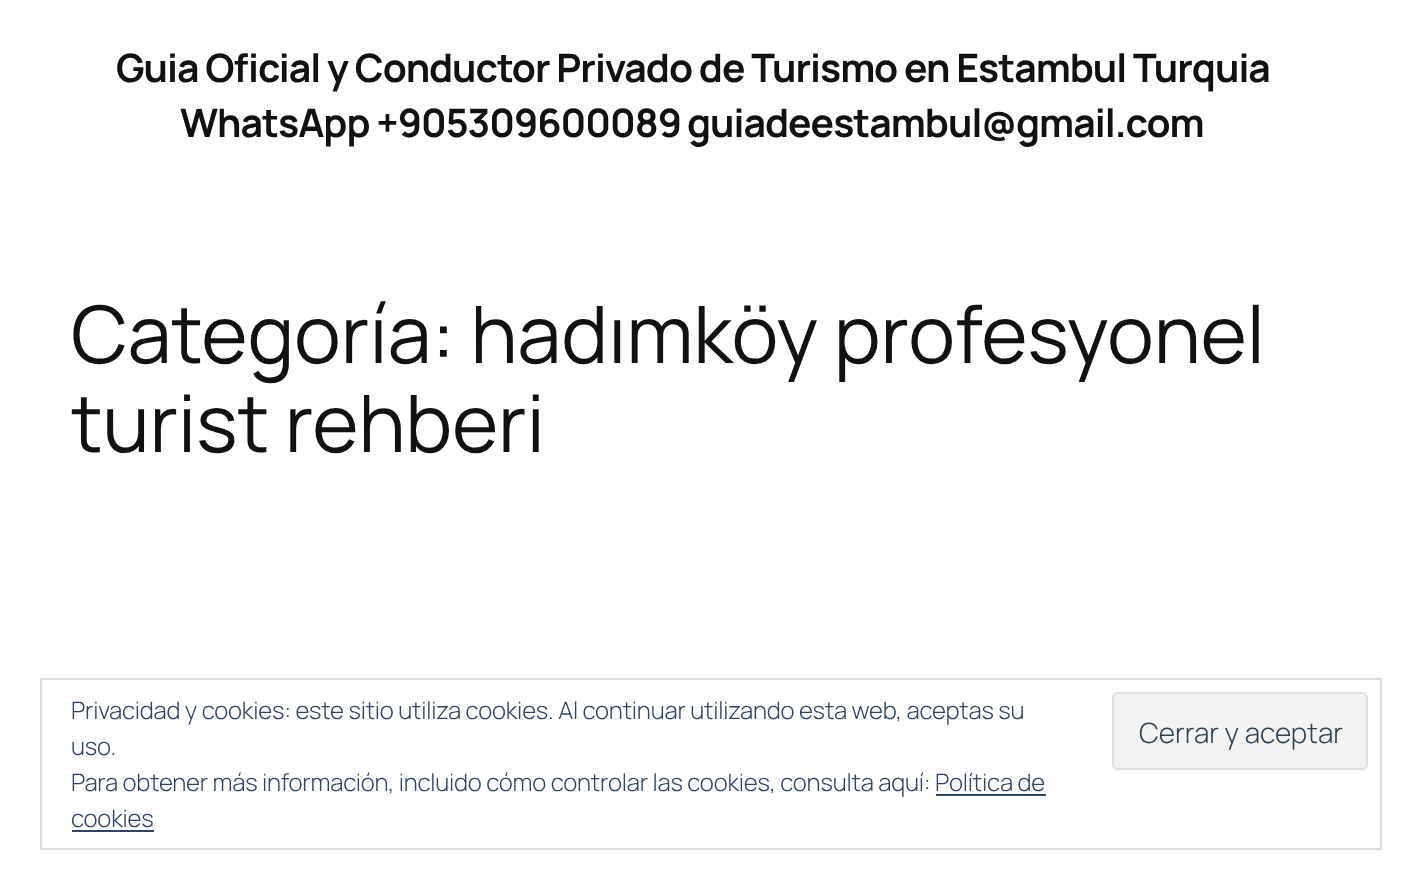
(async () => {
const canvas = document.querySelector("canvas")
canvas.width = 1421
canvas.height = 890
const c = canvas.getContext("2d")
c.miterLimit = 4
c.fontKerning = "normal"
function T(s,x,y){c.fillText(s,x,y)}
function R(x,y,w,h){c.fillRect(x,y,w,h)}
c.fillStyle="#fff"
R(0,0,1421,890)
c.letterSpacing="-1px"
c.font="bold 39.1px Manrope"
c.fillStyle="#111"
T("Guia Oficial y Conductor Privado de Turismo en Estambul Turquia",116,82)
T("WhatsApp +905309600089",180,137)
T("guiadeestambul@gmail.com",687,137)
c.letterSpacing="-0.2px"
c.font="79.25px Manrope"
T("Categoría: hadımköy profesyonel",71,363)
T("turist rehberi",71,452)
c.strokeStyle="#dedede"
c.lineWidth=2
c.strokeRect(41,679,1340,170)
c.font="300 24px Manrope"
c.fillStyle="#2e4467"
T("Privacidad y cookies: este sitio utiliza cookies. Al continuar utilizando esta web, aceptas su",71,719)
T("uso.",71,755)
c.fillStyle="#f3f3f3"
c.beginPath()
c.roundRect(1113,693,254,76,5)
c.fill()
c.stroke()
c.letterSpacing="0px"
c.font="300 28px Manrope"
c.fillStyle="#2e4453"
T("Cerrar y aceptar",1139,743)
c.letterSpacing="-0.2px"
c.font="300 24px Manrope"
c.fillStyle="#2e4467"
T("Para obtener más información, incluido cómo controlar las cookies, consulta aquí: Política de",71,791)
T("cookies",71,827)
R(936,794,110,2)
R(72,830,82,2)
})()
